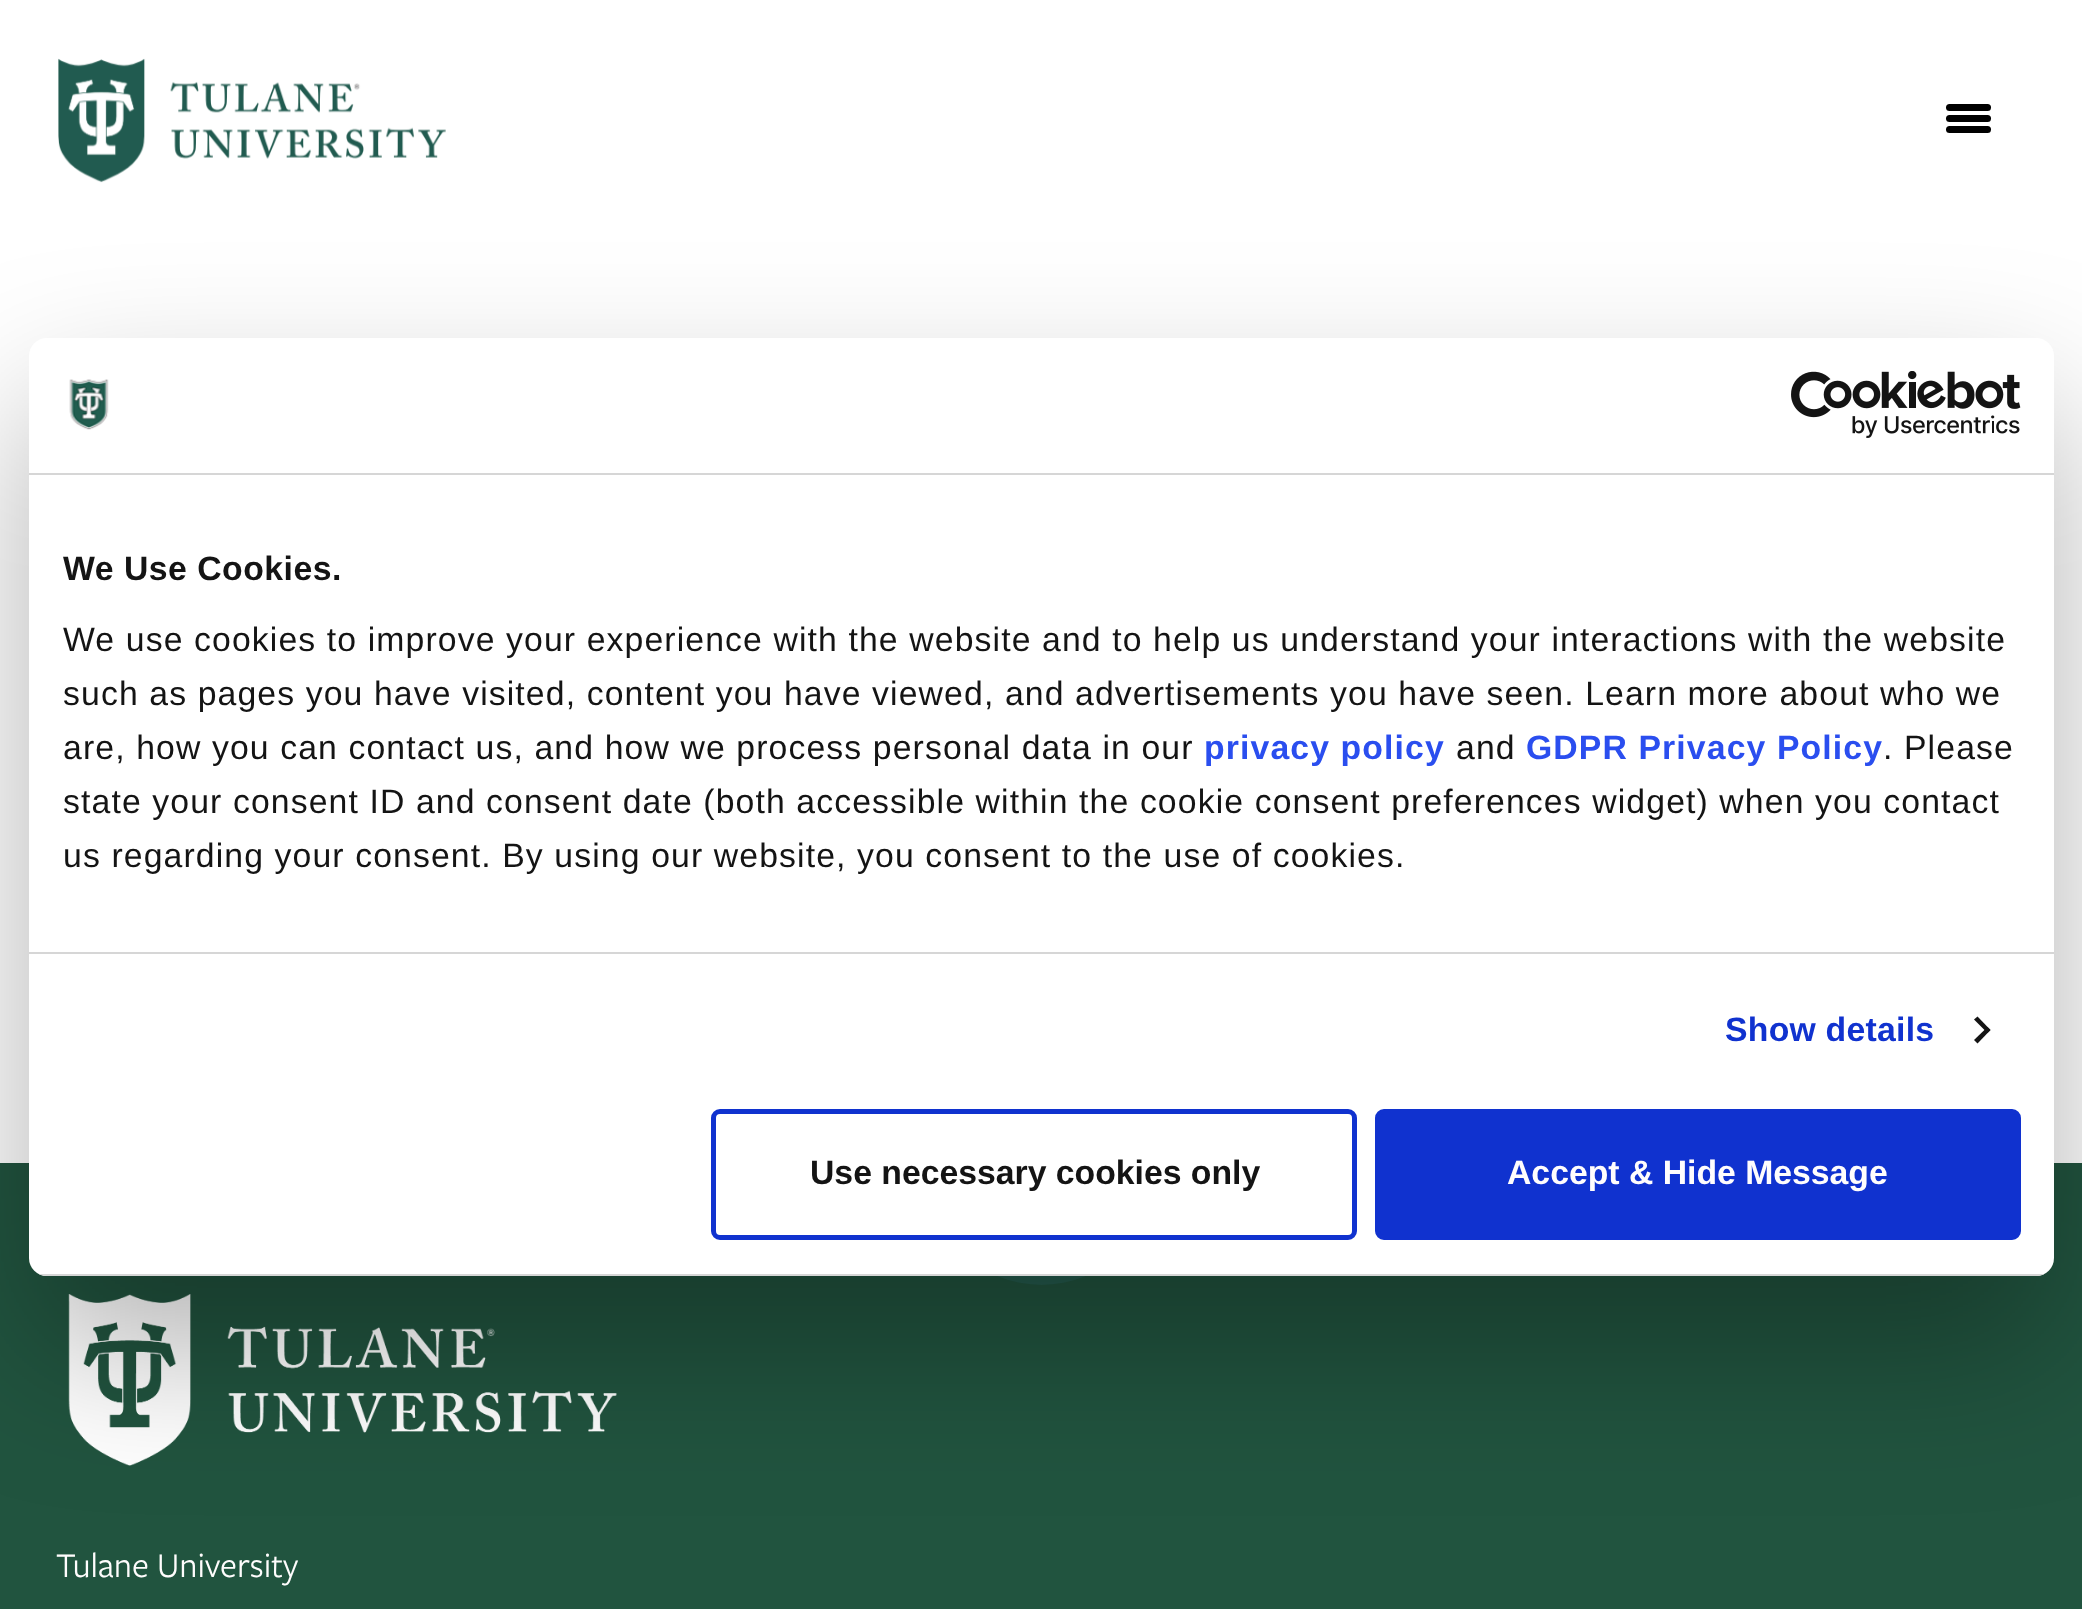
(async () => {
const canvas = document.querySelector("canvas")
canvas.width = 2082
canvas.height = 1609
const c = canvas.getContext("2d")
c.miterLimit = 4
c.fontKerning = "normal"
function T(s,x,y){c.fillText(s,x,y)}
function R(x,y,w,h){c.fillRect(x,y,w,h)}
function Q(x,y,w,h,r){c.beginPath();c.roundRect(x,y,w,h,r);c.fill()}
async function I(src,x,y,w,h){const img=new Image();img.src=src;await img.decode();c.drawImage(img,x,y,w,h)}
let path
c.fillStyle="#fff"
R(0,0,2082,1609)
await I("1.png",58,58,388,125)
c.fillStyle="#000"
Q(1946,115,45,7,3.5)
Q(1946,104,45,7,3.5)
Q(1946,126,45,7,3.5)
c.fillStyle="#21543f"
R(0,1163,2082,446)
c.fillStyle="#255c4e"
c.beginPath()
c.arc(1041.5,1172.5,112.5,0,7)
c.fill()
await I("4.png",68,1294,549,172)
c.fillStyle="#0000004d"
c.filter="blur(76.5px)"
c.beginPath()
c.roundRect(29,410,2025,938,18)
c.fill()
c.filter="none"
c.fillStyle="#fff"
Q(29,338,2025,938,18)
c.fillStyle="#d6d6d6"
R(29,473,2025,2)
await I("2.png",69,379,40,51)
await I("3.png",1791,371,230,67)
R(29,952,2025,2)
c.letterSpacing="0.5px"
c.font="bold 33.75px Liberation Sans"
c.fillStyle="#141414"
T("We Use Cookies.",63,580)
c.letterSpacing="1.12px"
c.font="33.75px Liberation Sans"
T("We use cookies to improve your experience with the website and to help us understand your interactions with the website",63,651)
T("such as pages you have visited, content you have viewed, and advertisements you have seen. Learn more about who we",63,705)
T("are, how you can contact us, and how we process personal data in our",63,759)
c.font="bold 33.75px Liberation Sans"
c.fillStyle="#2a4eef"
T("privacy policy",1204,759)
c.font="33.75px Liberation Sans"
c.fillStyle="#141414"
T("and",1456,759)
c.font="bold 33.75px Liberation Sans"
c.fillStyle="#2a4eef"
T("GDPR Privacy Policy",1526,759)
c.font="33.75px Liberation Sans"
c.fillStyle="#141414"
T(". Please",1883,759)
T("state your consent ID and consent date (both accessible within the cookie consent preferences widget) when you contact",63,813)
T("us regarding your consent. By using our website, you consent to the use of cookies.",63,867)
c.letterSpacing="0.25px"
c.font="bold 33.75px Liberation Sans"
c.fillStyle="#1032cf"
T("Show details",1725,1041)
c.fillStyle="#141414"
path = new Path2D("M1977.5 1016.5l13 13.5l-3 3l-13.5-13.5z")
c.fill(path)
path = new Path2D("M1987.5 1027l3 3l-13 13.5l-3.5-3.5z")
c.fill(path)
c.save()
c.beginPath()
c.roundRect(29,338,2025,938,18)
c.clip()
c.fillStyle="#d6d6d6"
R(39,1274,2005,2)
c.restore()
c.beginPath()
c.roundRect(713.5,1111.5,641,126,6.5)
c.strokeStyle="#1032cf"
c.lineWidth=5
c.stroke()
c.letterSpacing="0px"
T("Use necessary cookies only",810,1184)
c.fillStyle="#1032cf"
c.beginPath()
c.roundRect(1377.5,1111.5,641,126,6.5)
c.fill()
c.stroke()
c.fillStyle="#fffdfd"
T("Accept & Hide Message",1507,1184)
c.font="36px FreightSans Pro"
T("Tulane University",56,1577)
})()
